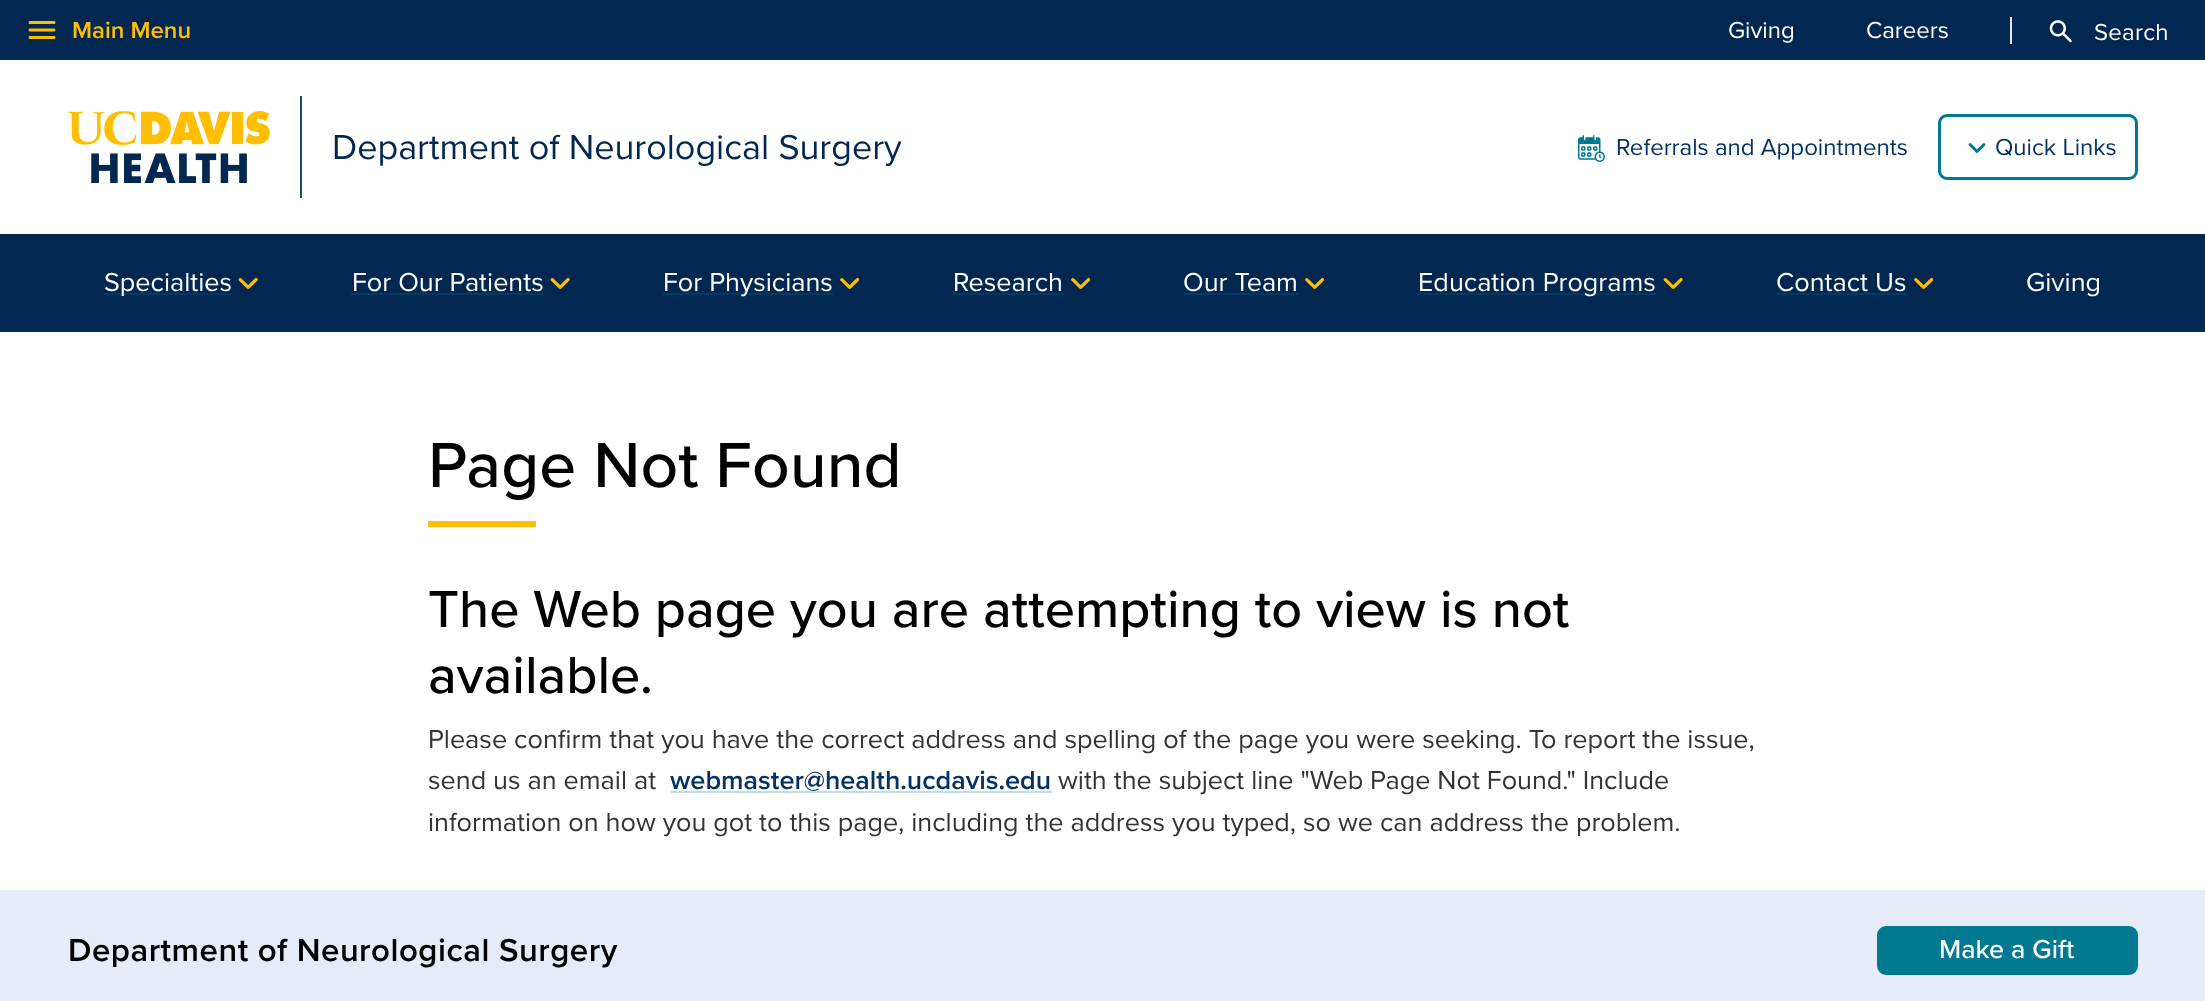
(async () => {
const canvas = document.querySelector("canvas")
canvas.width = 2205
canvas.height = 1001
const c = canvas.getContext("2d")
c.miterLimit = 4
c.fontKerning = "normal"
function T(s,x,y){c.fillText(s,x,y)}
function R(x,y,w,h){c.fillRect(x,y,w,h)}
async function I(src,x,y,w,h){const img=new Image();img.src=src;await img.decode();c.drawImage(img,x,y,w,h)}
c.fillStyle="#fff"
R(0,0,2205,1001)
c.fillStyle="#022851"
R(0,0,2205,60)
await I("1.png",28,21,28,18)
c.font="600 24px Proxima Nova"
c.fillStyle="#ffbf00"
T("Main Menu",72,38)
c.font="24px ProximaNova"
c.fillStyle="#fff"
T("Giving",1728,38)
T("Careers",1866,38)
c.fillStyle="#e6ecf7"
R(2010,17,2,27)
await I("2.png",2049,20,23,23)
c.letterSpacing="0.25px"
c.fillStyle="#fff"
T("Search",2094,40)
await I("3.png",68,111,202,72)
c.fillStyle="#1d4776"
R(300,96,2,102)
c.letterSpacing="0px"
c.font="36px ProximaNova"
c.fillStyle="#022851"
T("Department of Neurological Surgery",332,159)
await I("4.png",1578,135,27,27)
c.font="24px ProximaNova"
c.fillStyle="#033266"
T("Referrals and Appointments",1616,155)
c.beginPath()
c.roundRect(1939.5,115.5,197,63,7.5)
c.strokeStyle="#007991"
c.lineWidth=3
c.stroke()
await I("5.png",1968,143,18,10)
T("Quick Links",1995,155)
c.fillStyle="#022851"
R(0,234,2205,98)
c.fillStyle="#023c61"
R(104,293,127,2)
c.font="27px ProximaNova"
c.fillStyle="#fff"
T("Specialties",104,291)
await I("6.png",238,277,20,12)
T("For Our Patients",352,291)
c.fillStyle="#023c61"
R(351,293,192,2)
await I("7.png",550,277,20,12)
R(663,293,170,2)
c.fillStyle="#fff"
T("For Physicians",663,291)
await I("8.png",840,277,20,12)
T("Research",953,291)
c.fillStyle="#023c61"
R(953,293,111,2)
await I("8.png",1071,277,20,12)
c.fillStyle="#fff"
T("Our Team",1183,291)
c.fillStyle="#023c61"
R(1184,293,114,2)
await I("8.png",1305,277,20,12)
R(1418,293,238,2)
c.fillStyle="#fff"
T("Education Programs",1418,291)
await I("7.png",1663,277,20,12)
T("Contact Us",1776,291)
c.fillStyle="#023c61"
R(1776,293,131,2)
await I("8.png",1914,277,20,12)
c.fillStyle="#fff"
T("Giving",2026,291)
c.font="500 66px Proxima Nova"
c.fillStyle="#000"
T("Page Not Found",428,487)
c.fillStyle="#ffbf00"
R(428,521,108,6)
c.font="500 54px Proxima Nova"
c.fillStyle="#000"
T("The Web page you are attempting to view is not",428,627)
T("available.",428,693)
c.font="27px ProximaNova"
c.fillStyle="#333"
T("Please confirm that you have the correct address and spelling of the page you were seeking. To report the issue,",428,748)
T("send us an email at",428,789)
c.font="600 27px Proxima Nova"
c.fillStyle="#033266"
T("webmaster@health.ucdavis.edu",670,789)
c.fillStyle="#bfdee4"
R(671,791,381,2)
c.font="27px ProximaNova"
c.fillStyle="#333"
T("with the subject line \"Web Page Not Found.\" Include",1058,789)
T("information on how you got to this page, including the address you typed, so we can address the problem.",428,831)
c.fillStyle="#e6ecf7"
R(0,890,2205,111)
c.letterSpacing="0.5px"
c.font="600 33px Proxima Nova"
c.fillStyle="#000"
T("Department of Neurological Surgery",68,961)
c.fillStyle="#007991"
c.beginPath()
c.roundRect(1878.5,927.5,258,46,7.5)
c.fill()
c.stroke()
c.letterSpacing="0px"
c.font="500 27px Proxima Nova"
c.fillStyle="#fff"
T("Make a Gift",1939,958)
})()
